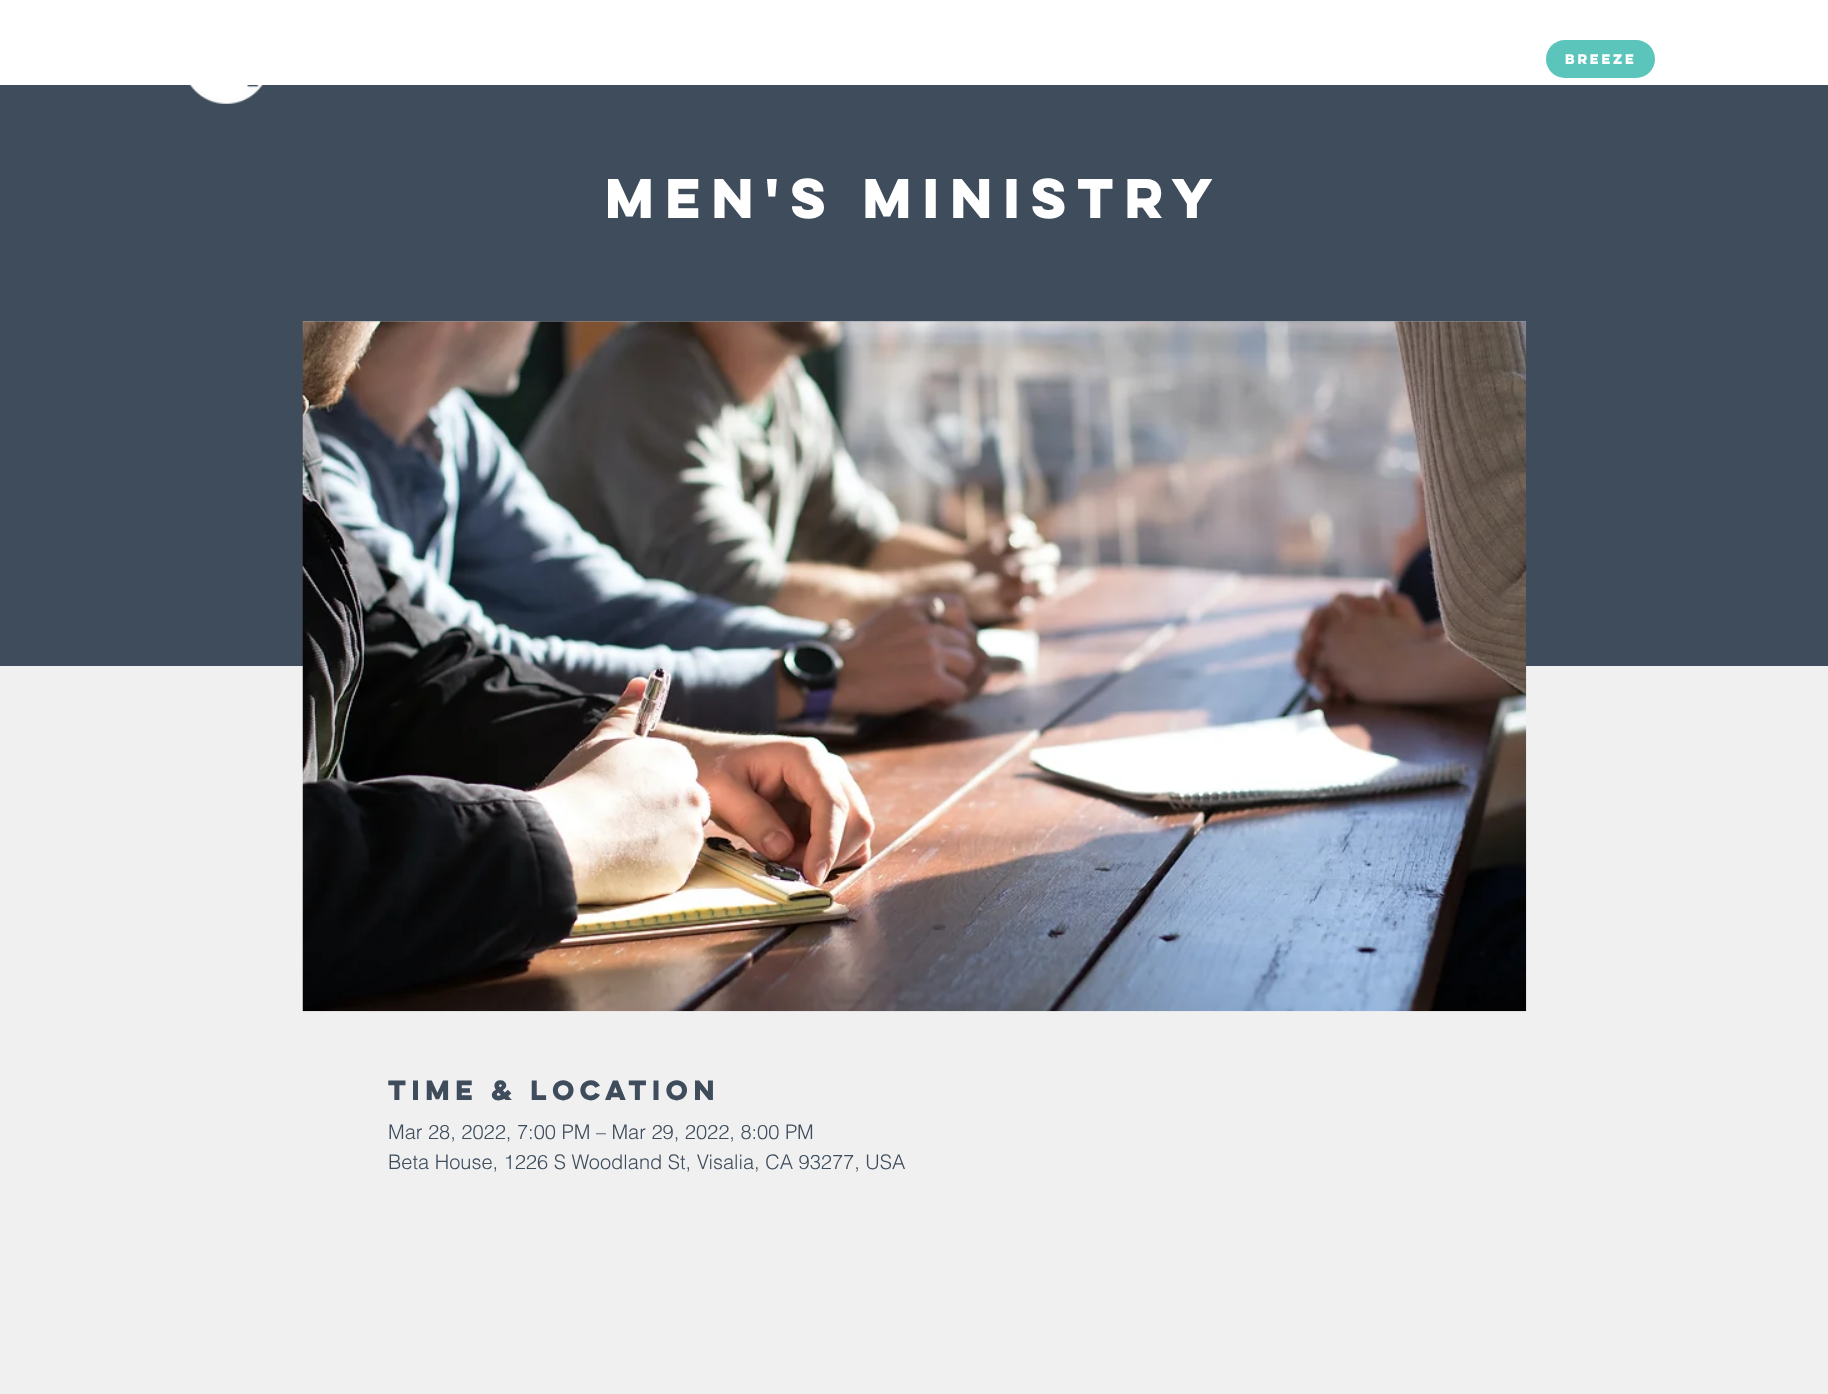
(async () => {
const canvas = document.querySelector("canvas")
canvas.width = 1828
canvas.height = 1394
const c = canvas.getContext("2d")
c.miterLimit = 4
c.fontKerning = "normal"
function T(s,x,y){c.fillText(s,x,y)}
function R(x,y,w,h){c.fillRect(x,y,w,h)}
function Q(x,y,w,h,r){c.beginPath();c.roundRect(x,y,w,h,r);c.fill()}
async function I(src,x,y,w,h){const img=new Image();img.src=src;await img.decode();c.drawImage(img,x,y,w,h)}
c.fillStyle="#fff"
R(0,0,1828,1394)
c.fillStyle="#5bc4bb"
Q(1546,40,109,38,19)
c.font="bold 12.5px 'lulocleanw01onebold'"
c.fillStyle="#fff"
T("Breeze",1565,64)
c.fillStyle="#3e4c5b"
R(0,85,1828,581)
await I("1.png",189,85,74,19)
c.font="bold 50px 'lulocleanw01onebold'"
c.fillStyle="#fff"
T("Men's Ministry",605,218)
c.fillStyle="#9ba3ad"
R(303,321,1223,1)
c.fillStyle="#f0f0f0"
R(0,666,1828,728)
await I("2.png",302,321,1225,691)
c.font="bold 25px 'lulocleanw01onebold'"
c.fillStyle="#3e4c5b"
T("Time & Location",388,1100)
c.font="300 20px helvetica"
T("Mar 28, 2022, 7:00 PM – Mar 29, 2022, 8:00 PM",388,1139)
T("Beta House, 1226 S Woodland St, Visalia, CA 93277, USA",388,1169)
})()
